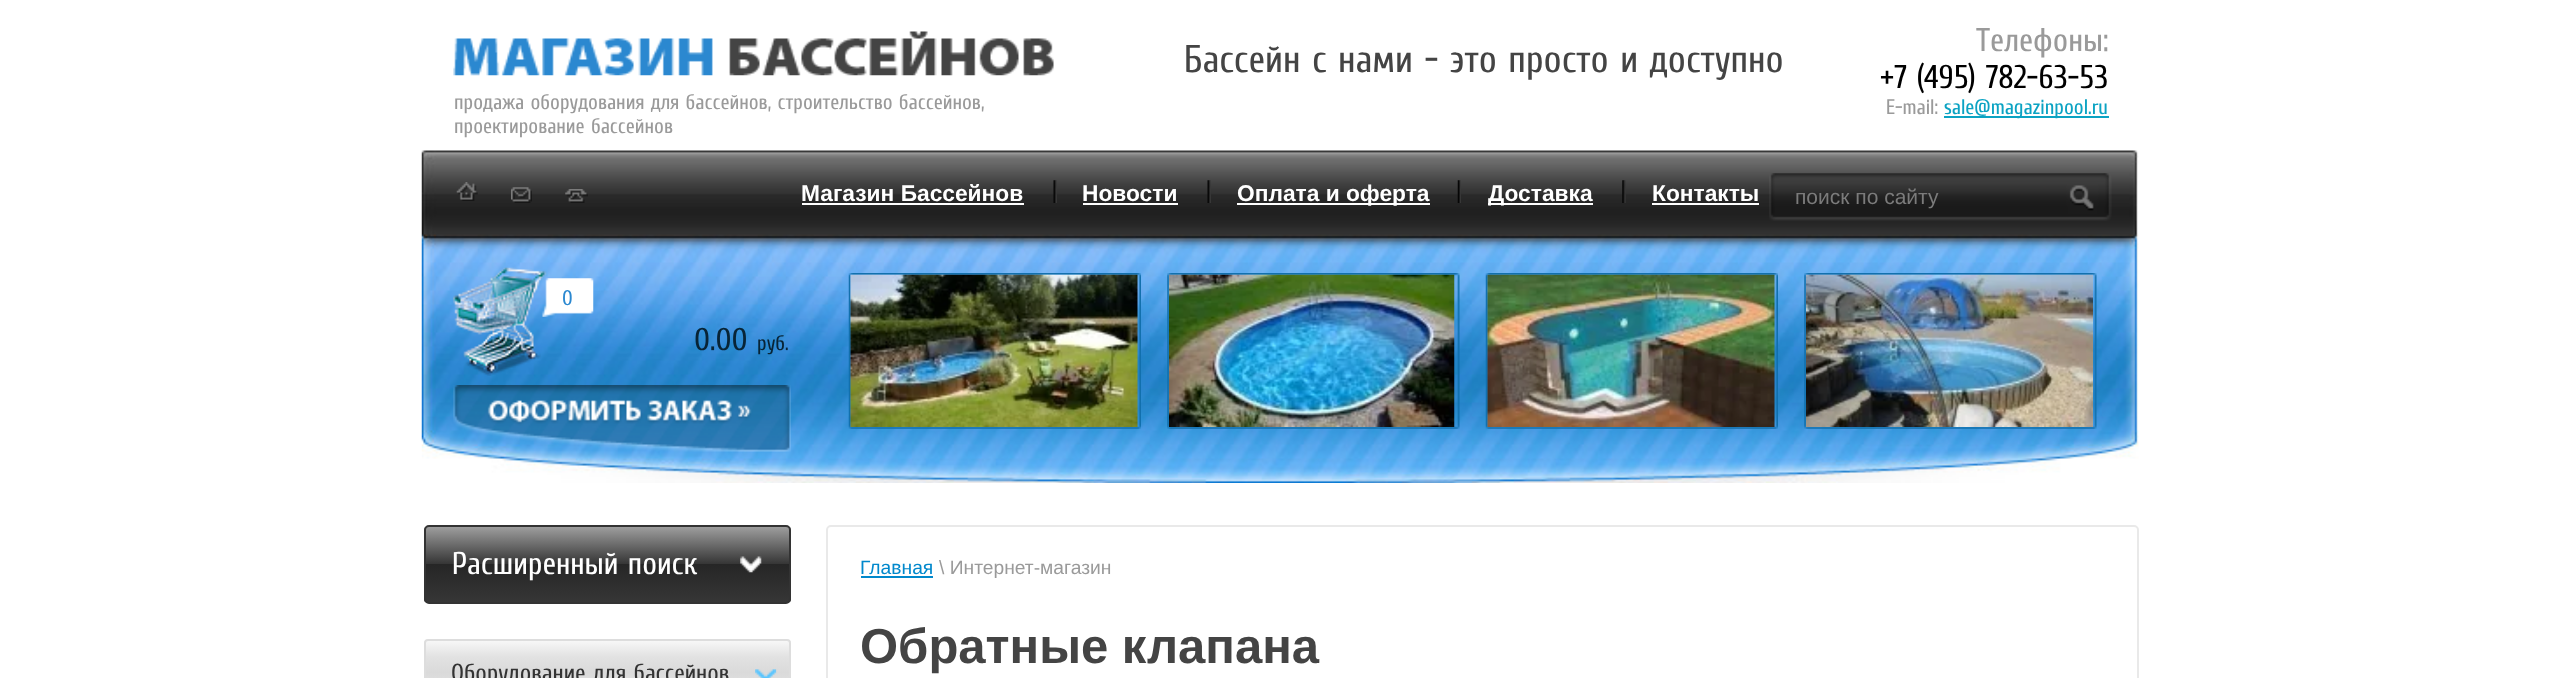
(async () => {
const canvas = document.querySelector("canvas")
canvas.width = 2559
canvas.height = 678
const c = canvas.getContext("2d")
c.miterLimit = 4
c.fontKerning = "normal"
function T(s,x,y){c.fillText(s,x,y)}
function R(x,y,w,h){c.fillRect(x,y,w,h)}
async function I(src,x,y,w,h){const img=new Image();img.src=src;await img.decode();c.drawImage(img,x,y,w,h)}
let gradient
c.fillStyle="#fff"
R(0,0,2559,678)
await I("1.png",421,150,1718,333)
await I("2.png",453,31,601,45)
c.font="38.5px Cuprum"
c.fillStyle="#444"
T("Бассейн с нами - это просто и доступно",1184,72)
c.font="32.75px Cuprum"
c.fillStyle="#9a9a9a"
T("Телефоны:",1976,51)
c.fillStyle="#000"
T("+7 (495) 782-63-53",1880,88)
c.font="21px Cuprum"
c.fillStyle="#9a9a9a"
T("E-mail:",1886,114)
c.fillStyle="#0ba3c3"
R(1944,116,165,2)
T("sale@magazinpool.ru",1944,114)
c.fillStyle="#9a9a9a"
T("продажа оборудования для бассейнов, строительство бассейнов,",454,109)
T("проектирование бассейнов",454,133)
await I("3.png",456,182,22,19)
await I("4.png",511,187,21,16)
await I("5.png",565,189,23,14)
c.font="bold 22.75px Liberation Sans"
c.fillStyle="#fff"
T("Магазин Бассейнов",801,201)
R(802,203,222,2)
await I("6.png",1053,180,4,23)
T("Новости",1082,201)
R(1083,203,95,2)
await I("6.png",1207,180,4,23)
R(1237,203,193,2)
T("Оплата и оферта",1237,201)
await I("7.png",1457,180,4,23)
R(1488,203,105,2)
T("Доставка",1488,201)
await I("8.png",1622,180,4,23)
T("Контакты",1652,201)
R(1652,203,107,2)
await I("9.png",1769,173,343,48)
c.font="21px Liberation Sans"
c.fillStyle="#7b7b7b"
T("поиск по сайту",1795,204)
await I("10.png",453,267,94,109)
await I("11.png",542,278,52,39)
c.font="21px Cuprum"
c.fillStyle="#2b88d0"
T("0",562,305)
c.font="31.5px Cuprum"
c.fillStyle="#082436"
T("0.00",694,350)
c.font="21px Cuprum"
T("руб.",757,350)
await I("12.png",453,385,338,67)
await I("13.png",848,273,293,156)
await I("14.png",850,274,288,153)
await I("15.png",1167,273,293,156)
await I("16.png",1169,274,286,153)
await I("17.png",1485,273,293,156)
await I("18.png",1487,274,288,153)
await I("19.png",1804,273,293,156)
await I("20.png",1806,274,287,153)
c.save()
c.beginPath()
c.roundRect(424,525,367,79,5)
c.clip()
gradient = c.createLinearGradient(607,527,607,602)
gradient.addColorStop(0,"#9d9d9d")
gradient.addColorStop(.49,"#363636")
gradient.addColorStop(.5,"#262626")
gradient.addColorStop(1,"#363636")
c.fillStyle = gradient
R(424,527,367,75)
c.restore()
c.beginPath()
c.roundRect(425,526,365,77,4)
c.strokeStyle="#333"
c.lineWidth=2
c.stroke()
c.font="31.5px Cuprum"
c.fillStyle="#fff"
T("Расширенный поиск",452,574)
await I("21.png",740,556,22,17)
gradient = c.createLinearGradient(607,641,607,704)
gradient.addColorStop(0,"#f7f7f7")
gradient.addColorStop(.25,"#e2e2e2")
gradient.addColorStop(.5,"#dadada")
gradient.addColorStop(.75,"#e2e2e2")
gradient.addColorStop(1,"#f3f3f3")
c.fillStyle = gradient
R(424,641,367,37)
c.beginPath()
c.roundRect(425,640,365,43,3)
c.strokeStyle="#ddd"
c.stroke()
c.font="24.5px Cuprum"
c.fillStyle="#333"
T("Оборудование для бассейнов",451,681)
await I("22.png",755,669,22,9)
c.beginPath()
c.roundRect(827,526,1311,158,4)
c.strokeStyle="#e9e9e9"
c.stroke()
c.font="19.25px Liberation Sans"
c.fillStyle="#08c"
T("Главная",860,574)
R(861,576,72,2)
c.fillStyle="#9a9a9a"
T("\\ Интернет-магазин",939,574)
c.font="bold 49px Liberation Sans"
c.fillStyle="#444"
T("Обратные клапана",860,663)
})()
